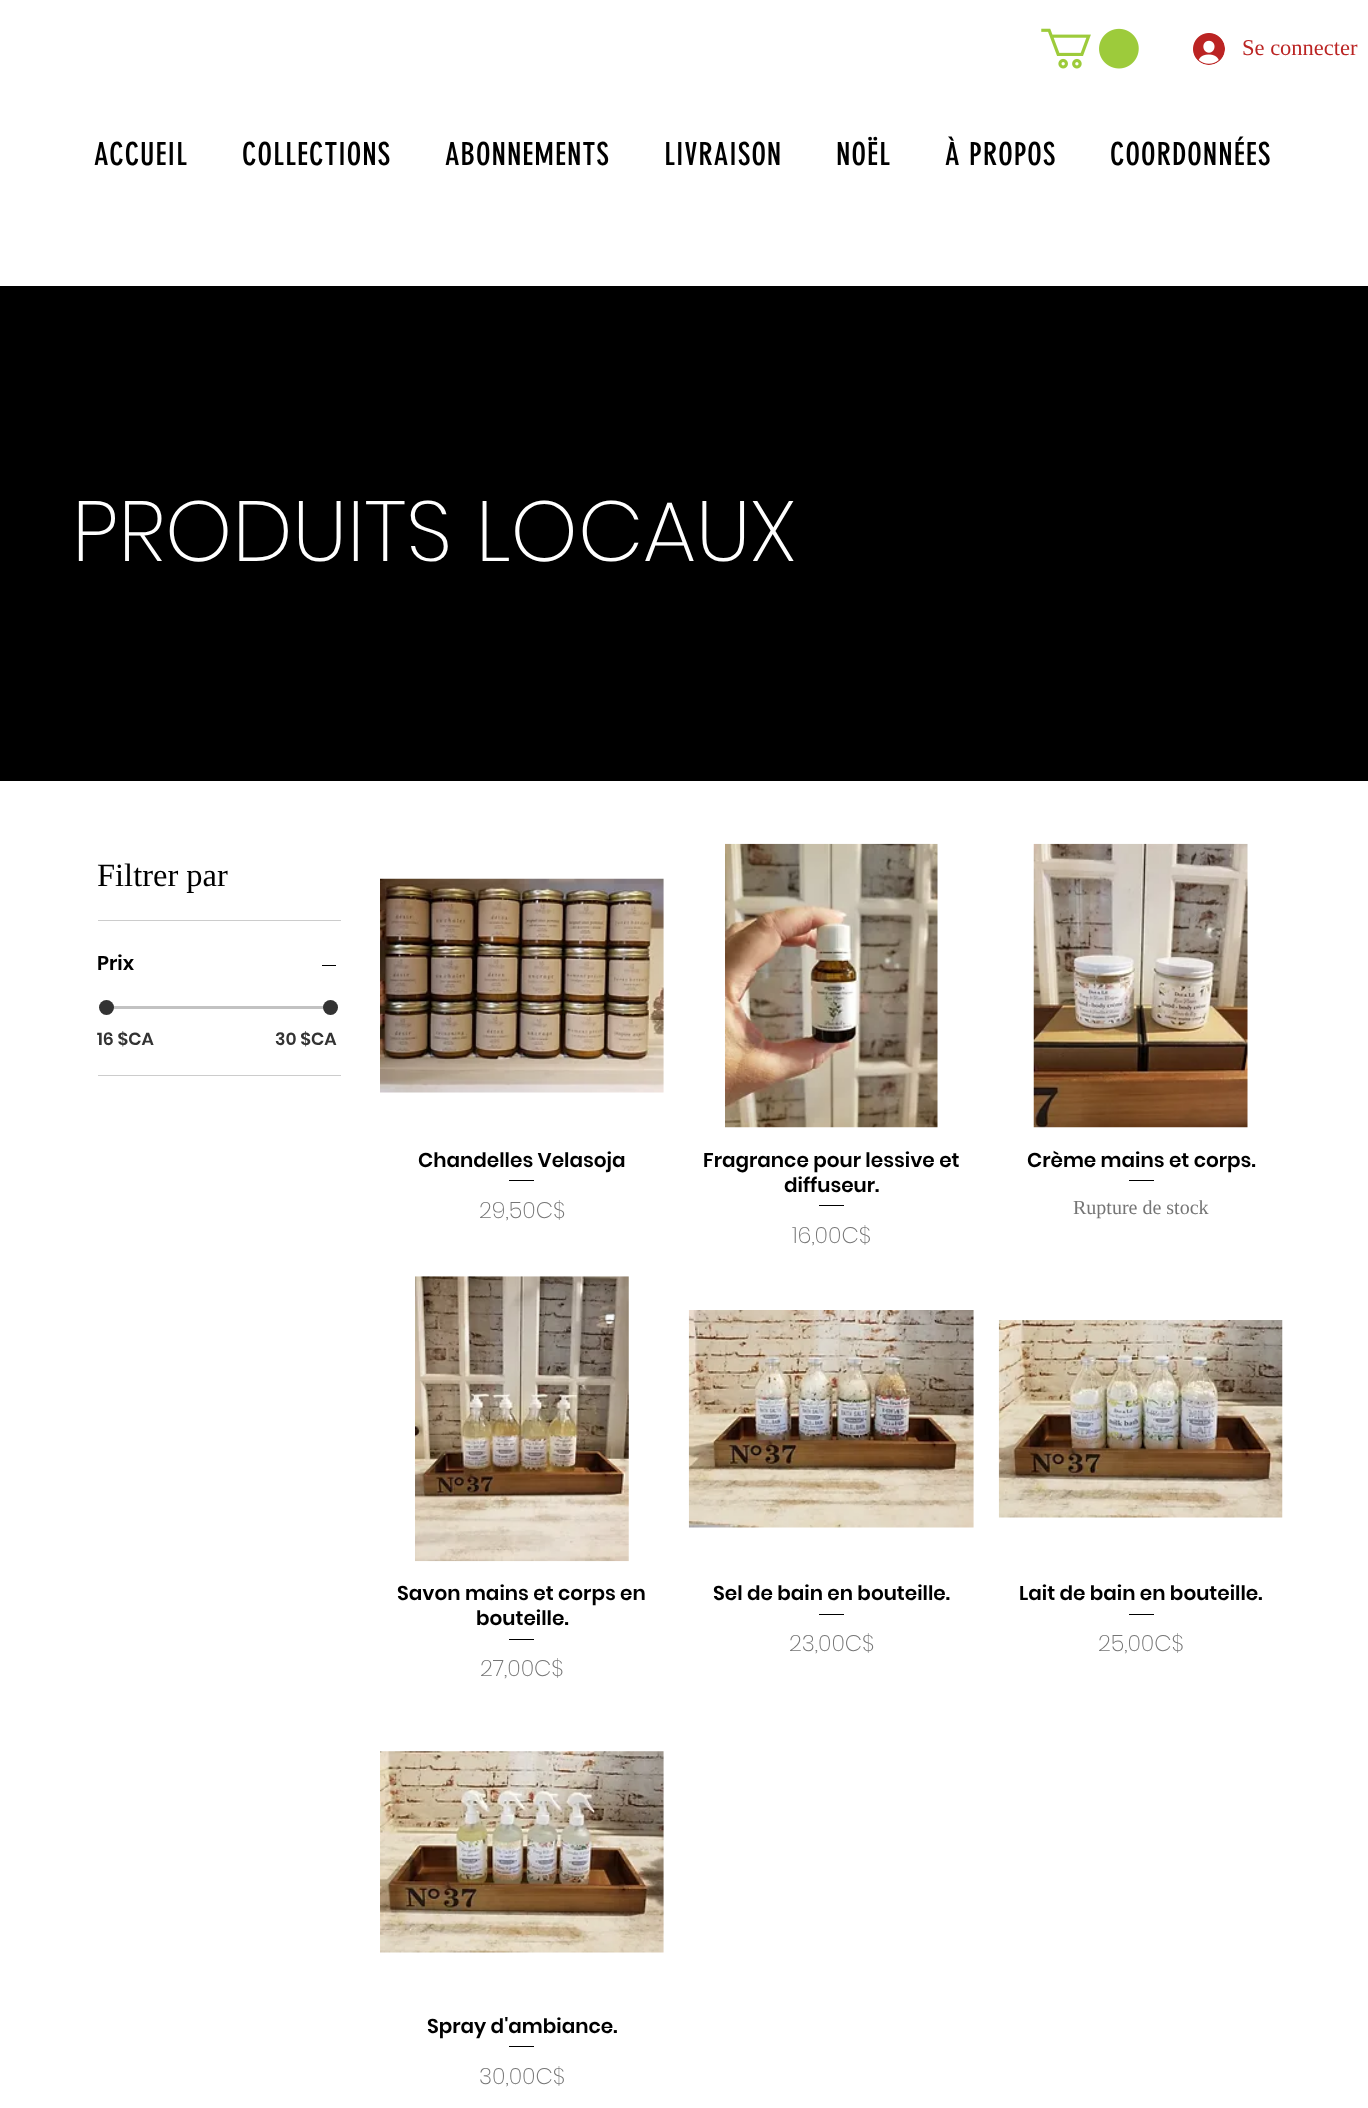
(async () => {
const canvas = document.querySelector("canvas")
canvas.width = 1368
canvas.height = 2108
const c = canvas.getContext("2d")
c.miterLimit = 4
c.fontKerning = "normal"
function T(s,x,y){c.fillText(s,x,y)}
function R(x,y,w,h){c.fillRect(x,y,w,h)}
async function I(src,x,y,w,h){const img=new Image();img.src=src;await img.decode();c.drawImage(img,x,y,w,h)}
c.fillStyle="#fff"
R(0,0,1368,2108)
await I("1.png",1041,28,98,41)
await I("2.png",1193,33,32,32)
c.font="22.5px Liberation Serif"
c.fillStyle="#bb2423"
T("Se connecter",1242,55)
c.letterSpacing="1px"
c.font="31.25px 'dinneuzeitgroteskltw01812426'"
c.fillStyle="#000"
T("ACCUEIL",94,165)
T("COLLECTIONS",242,165)
T("ABONNEMENTS",445,165)
T("LIVRAISON",664,165)
T("NOËL",836,165)
T("À PROPOS",945,165)
T("COORDONNÉES",1110,165)
R(0,286,1368,495)
c.letterSpacing="0px"
c.font="200 85px Poppins"
c.fillStyle="#fff"
T("PRODUITS LOCAUX",72,561)
c.fillStyle="#ccc"
R(98,920,243,1)
c.font="32.5px Liberation Serif"
c.fillStyle="#000"
T("Filtrer par",97,886)
c.fillStyle="#ccc"
R(98,1075,243,1)
c.font="600 20px Poppins"
c.fillStyle="#000"
T("Prix",97,970)
R(322,965,14,1)
c.fillStyle="#c2c2c2"
R(105,1006,224,3)
c.fillStyle="#333"
c.beginPath()
c.arc(106.5,1007.5,7.5,0,7)
c.fill()
c.beginPath()
c.arc(330.5,1007.5,7.5,0,7)
c.fill()
c.font="600 17.5px Poppins"
T("16 $CA",97,1045)
T("30 $CA",275,1045)
await I("3.png",380,878,284,215)
c.font="600 20px Poppins"
c.fillStyle="#000"
T("Chandelles Velasoja",418,1167)
R(509,1180,25,1)
c.font="200 22.5px Poppins"
c.fillStyle="#757575"
T("29,50C$",479,1218)
await I("4.png",725,843,213,285)
c.font="600 20px Poppins"
c.fillStyle="#000"
T("Fragrance pour lessive et",703,1167)
T("diffuseur.",784,1192)
R(819,1205,25,1)
c.font="200 22.5px Poppins"
c.fillStyle="#757575"
T("16,00C$",792,1243)
await I("5.png",1033,843,215,285)
c.font="600 20px Poppins"
c.fillStyle="#000"
T("Crème mains et corps.",1027,1167)
R(1129,1180,25,1)
c.font="20px Liberation Serif"
c.fillStyle="#757575"
T("Rupture de stock",1073,1214)
await I("6.png",415,1276,214,286)
c.font="600 20px Poppins"
c.fillStyle="#000"
T("Savon mains et corps en",397,1600)
T("bouteille.",476,1625)
R(509,1639,25,1)
c.font="200 22.5px Poppins"
c.fillStyle="#757575"
T("27,00C$",480,1676)
await I("7.png",688,1310,286,218)
c.font="600 20px Poppins"
c.fillStyle="#000"
T("Sel de bain en bouteille.",713,1600)
R(819,1614,25,1)
c.font="200 22.5px Poppins"
c.fillStyle="#757575"
T("23,00C$",789,1651)
await I("8.png",998,1320,285,198)
c.font="600 20px Poppins"
c.fillStyle="#000"
T("Lait de bain en bouteille.",1019,1600)
R(1129,1614,25,1)
c.font="200 22.5px Poppins"
c.fillStyle="#757575"
T("25,00C$",1098,1651)
await I("9.png",380,1751,284,202)
c.font="600 20px Poppins"
c.fillStyle="#000"
T("Spray d'ambiance.",427,2033)
R(509,2046,25,1)
c.font="200 22.5px Poppins"
c.fillStyle="#757575"
T("30,00C$",479,2084)
})()
